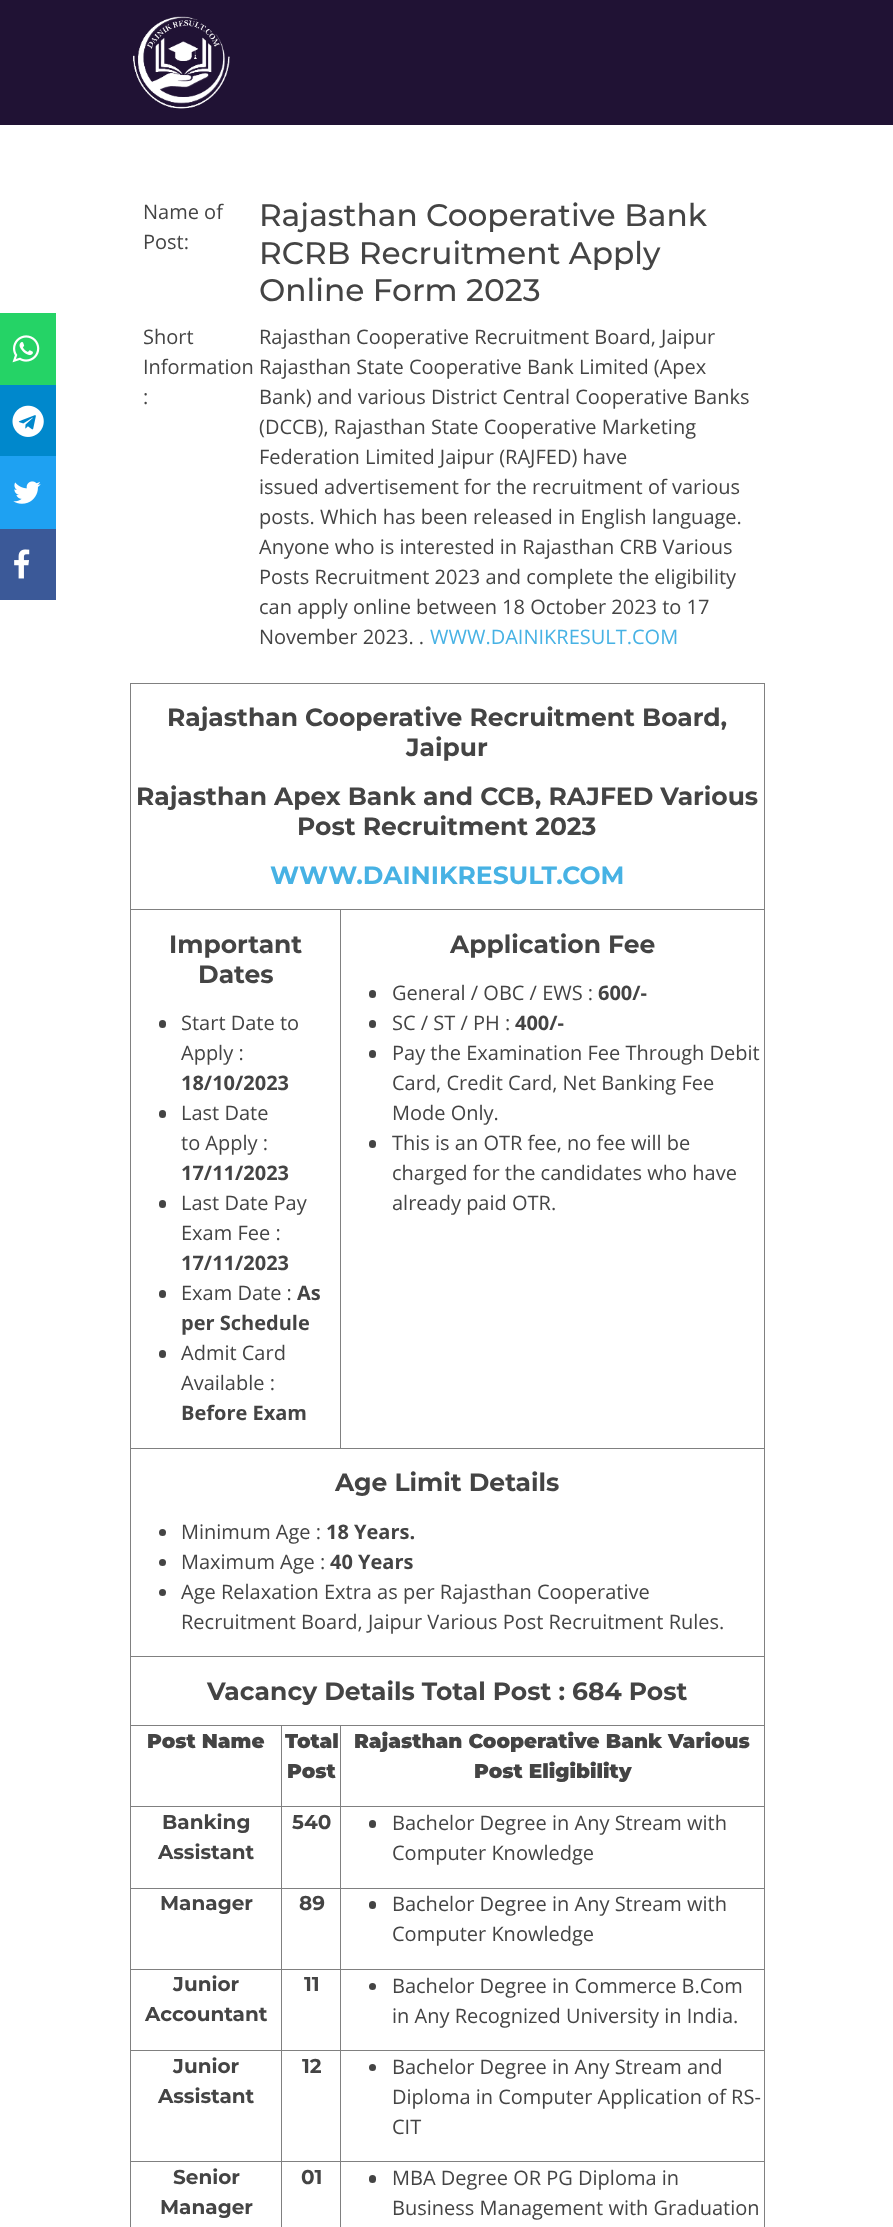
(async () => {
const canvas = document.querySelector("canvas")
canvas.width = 893
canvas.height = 2227
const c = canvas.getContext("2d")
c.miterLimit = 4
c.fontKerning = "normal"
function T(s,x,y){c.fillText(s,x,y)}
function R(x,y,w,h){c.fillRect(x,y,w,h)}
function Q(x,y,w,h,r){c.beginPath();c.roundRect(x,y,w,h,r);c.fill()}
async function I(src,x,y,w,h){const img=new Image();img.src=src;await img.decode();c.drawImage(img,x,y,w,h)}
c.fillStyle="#fff"
R(0,0,893,2227)
c.fillStyle="#201234"
R(0,0,893,125)
await I("1.png",133,16,97,93)
c.fillStyle="#25d366"
R(0,313,56,72)
await I("2.png",12,335,28,28)
c.fillStyle="#08c"
R(0,385,56,71)
await I("3.png",12,405,32,32)
c.fillStyle="#1ea1f2"
R(0,456,56,73)
await I("4.png",13,481,28,23)
c.fillStyle="#3b5998"
R(0,529,56,71)
await I("5.png",14,549,16,30)
c.font="20px Open Sans"
c.fillStyle="#444"
T("Name of",143,219)
T("Post:",143,249)
c.font="500 31.25px Montserrat"
T("Rajasthan Cooperative Bank",259,226)
T("RCRB Recruitment Apply",259,264)
T("Online Form 2023",259,301)
c.font="20px Open Sans"
T("Short",143,344)
T("Information Rajasthan State Cooperative Bank Limited (Apex",143,374)
T(":",143,404)
T("Rajasthan Cooperative Recruitment Board, Jaipur",259,344)
T("Bank) and various District Central Cooperative Banks",259,404)
T("(DCCB), Rajasthan State Cooperative Marketing",259,434)
T("Federation Limited Jaipur (RAJFED) have",259,464)
T("issued advertisement for the recruitment of various",259,494)
T("posts. Which has been released in English language.",259,524)
T("Anyone who is interested in Rajasthan CRB Various",259,554)
T("Posts Recruitment 2023 and complete the eligibility",259,584)
T("can apply online between 18 October 2023 to 17",259,614)
T("November 2023. .",259,644)
c.fillStyle="#47b2e4"
T("WWW.DAINIKRESULT.COM",430,644)
c.fillStyle="#808080"
R(130,683,635,1)
R(764,683,1,1544)
R(130,683,1,1544)
c.font="bold 25px Montserrat"
c.fillStyle="#444"
T("Rajasthan Cooperative Recruitment Board,",167,726)
T("Jaipur",406,756)
T("Rajasthan Apex Bank and CCB, RAJFED Various",136,805)
T("Post Recruitment 2023",297,835)
c.fillStyle="#47b2e4"
T("WWW.DAINIKRESULT.COM",270,884)
c.fillStyle="#808080"
R(340,909,425,1)
R(130,1448,635,1)
R(340,909,1,540)
R(130,909,211,1)
c.fillStyle="#444"
T("Important",169,953)
T("Dates",198,983)
Q(159,1020,7,8,3.5)
c.font="20px Open Sans"
T("Start Date to",181,1030)
T("Apply :",181,1060)
c.font="bold 20px Open Sans"
T("18/10/2023",181,1090)
Q(159,1110,7,8,3.5)
c.font="20px Open Sans"
T("Last Date",181,1120)
T("to Apply :",181,1150)
c.font="bold 20px Open Sans"
T("17/11/2023",181,1180)
Q(159,1200,7,8,3.5)
c.font="20px Open Sans"
T("Last Date Pay",181,1210)
T("Exam Fee :",181,1240)
c.font="bold 20px Open Sans"
T("17/11/2023",181,1270)
Q(159,1290,7,8,3.5)
c.font="20px Open Sans"
T("Exam Date :",181,1300)
c.font="bold 20px Open Sans"
T("As",297,1300)
T("per Schedule",181,1330)
Q(159,1350,7,8,3.5)
c.font="20px Open Sans"
T("Admit Card",181,1360)
T("Available :",181,1390)
c.font="bold 20px Open Sans"
T("Before Exam",181,1420)
c.font="bold 25px Montserrat"
T("Application Fee",450,953)
Q(369,990,7,8,3.5)
c.font="20px Open Sans"
T("General / OBC / EWS :",392,1000)
c.font="bold 20px Open Sans"
T("600/-",598,1000)
Q(369,1020,7,8,3.5)
c.font="20px Open Sans"
T("SC / ST / PH :",392,1030)
c.font="bold 20px Open Sans"
T("400/-",515,1030)
Q(369,1050,7,8,3.5)
c.font="20px Open Sans"
T("Pay the Examination Fee Through Debit",392,1060)
T("Card, Credit Card, Net Banking Fee",392,1090)
T("Mode Only.",392,1120)
Q(369,1140,7,8,3.5)
T("This is an OTR fee, no fee will be",392,1150)
T("charged for the candidates who have",392,1180)
T("already paid OTR.",392,1210)
c.font="bold 25px Montserrat"
T("Age Limit Details",335,1491)
c.beginPath()
c.arc(162.5,1532.5,3.5,0,7)
c.fill()
c.font="20px Open Sans"
T("Minimum Age :",181,1539)
c.font="bold 20px Open Sans"
T("18 Years.",326,1539)
c.beginPath()
c.arc(162.5,1562.5,3.5,0,7)
c.fill()
c.font="20px Open Sans"
T("Maximum Age :",181,1569)
c.font="bold 20px Open Sans"
T("40 Years",330,1569)
c.beginPath()
c.arc(162.5,1592.5,3.5,0,7)
c.fill()
c.font="20px Open Sans"
T("Age Relaxation Extra as per Rajasthan Cooperative",181,1599)
T("Recruitment Board, Jaipur Various Post Recruitment Rules.",181,1629)
c.fillStyle="#808080"
R(130,1656,635,1)
c.font="bold 25px Montserrat"
c.fillStyle="#444"
T("Vacancy Details Total Post : 684 Post",207,1700)
c.fillStyle="#808080"
R(340,1725,425,1)
R(340,1806,425,1)
R(340,1888,425,1)
R(340,1969,425,1)
R(340,2050,425,1)
R(340,2161,425,1)
R(340,2161,1,66)
R(281,2161,60,1)
R(340,2050,1,113)
R(281,2050,60,1)
R(340,1969,1,82)
R(281,1969,60,1)
R(340,1888,1,82)
R(281,1888,60,1)
R(340,1806,1,83)
R(281,1806,60,1)
R(340,1725,1,83)
R(281,1725,60,1)
R(281,2161,1,66)
R(130,2161,153,1)
R(281,2050,1,113)
R(130,2050,153,1)
R(281,1969,1,82)
R(130,1969,153,1)
R(281,1888,1,82)
R(130,1888,153,1)
R(281,1806,1,83)
R(130,1806,153,1)
R(281,1725,1,83)
R(130,1725,153,1)
c.font="900 20px Montserrat"
c.fillStyle="#444"
T("Post Name",147,1748)
T("Total",285,1748)
T("Post",287,1778)
T("Rajasthan Cooperative Bank Various",354,1748)
T("Post Eligibility",474,1778)
c.font="bold 20px Montserrat"
T("Banking",162,1829)
T("Assistant",158,1859)
T("540",292,1829)
Q(369,1820,7,8,3.5)
c.font="20px Open Sans"
T("Bachelor Degree in Any Stream with",392,1830)
T("Computer Knowledge",392,1860)
c.font="bold 20px Montserrat"
T("Manager",160,1910)
T("89",299,1910)
Q(369,1901,7,8,3.5)
c.font="20px Open Sans"
T("Bachelor Degree in Any Stream with",392,1911)
T("Computer Knowledge",392,1941)
c.font="bold 20px Montserrat"
T("Junior",173,1991)
T("Accountant",145,2021)
T("11",304,1991)
c.beginPath()
c.arc(372.5,1986.5,3.5,0,7)
c.fill()
c.font="20px Open Sans"
T("Bachelor Degree in Commerce B.Com",392,1993)
T("in Any Recognized University in India.",392,2023)
c.font="bold 20px Montserrat"
T("Junior",173,2073)
T("Assistant",158,2103)
T("12",302,2073)
c.beginPath()
c.arc(372.5,2067.5,3.5,0,7)
c.fill()
c.font="20px Open Sans"
T("Bachelor Degree in Any Stream and",392,2074)
T("Diploma in Computer Application of RS-",392,2104)
T("CIT",392,2134)
c.font="bold 20px Montserrat"
T("Senior",173,2184)
T("Manager",160,2214)
T("01",301,2184)
Q(369,2175,7,8,3.5)
c.font="20px Open Sans"
T("MBA Degree OR PG Diploma in",392,2185)
T("Business Management with Graduation",392,2215)
})()
